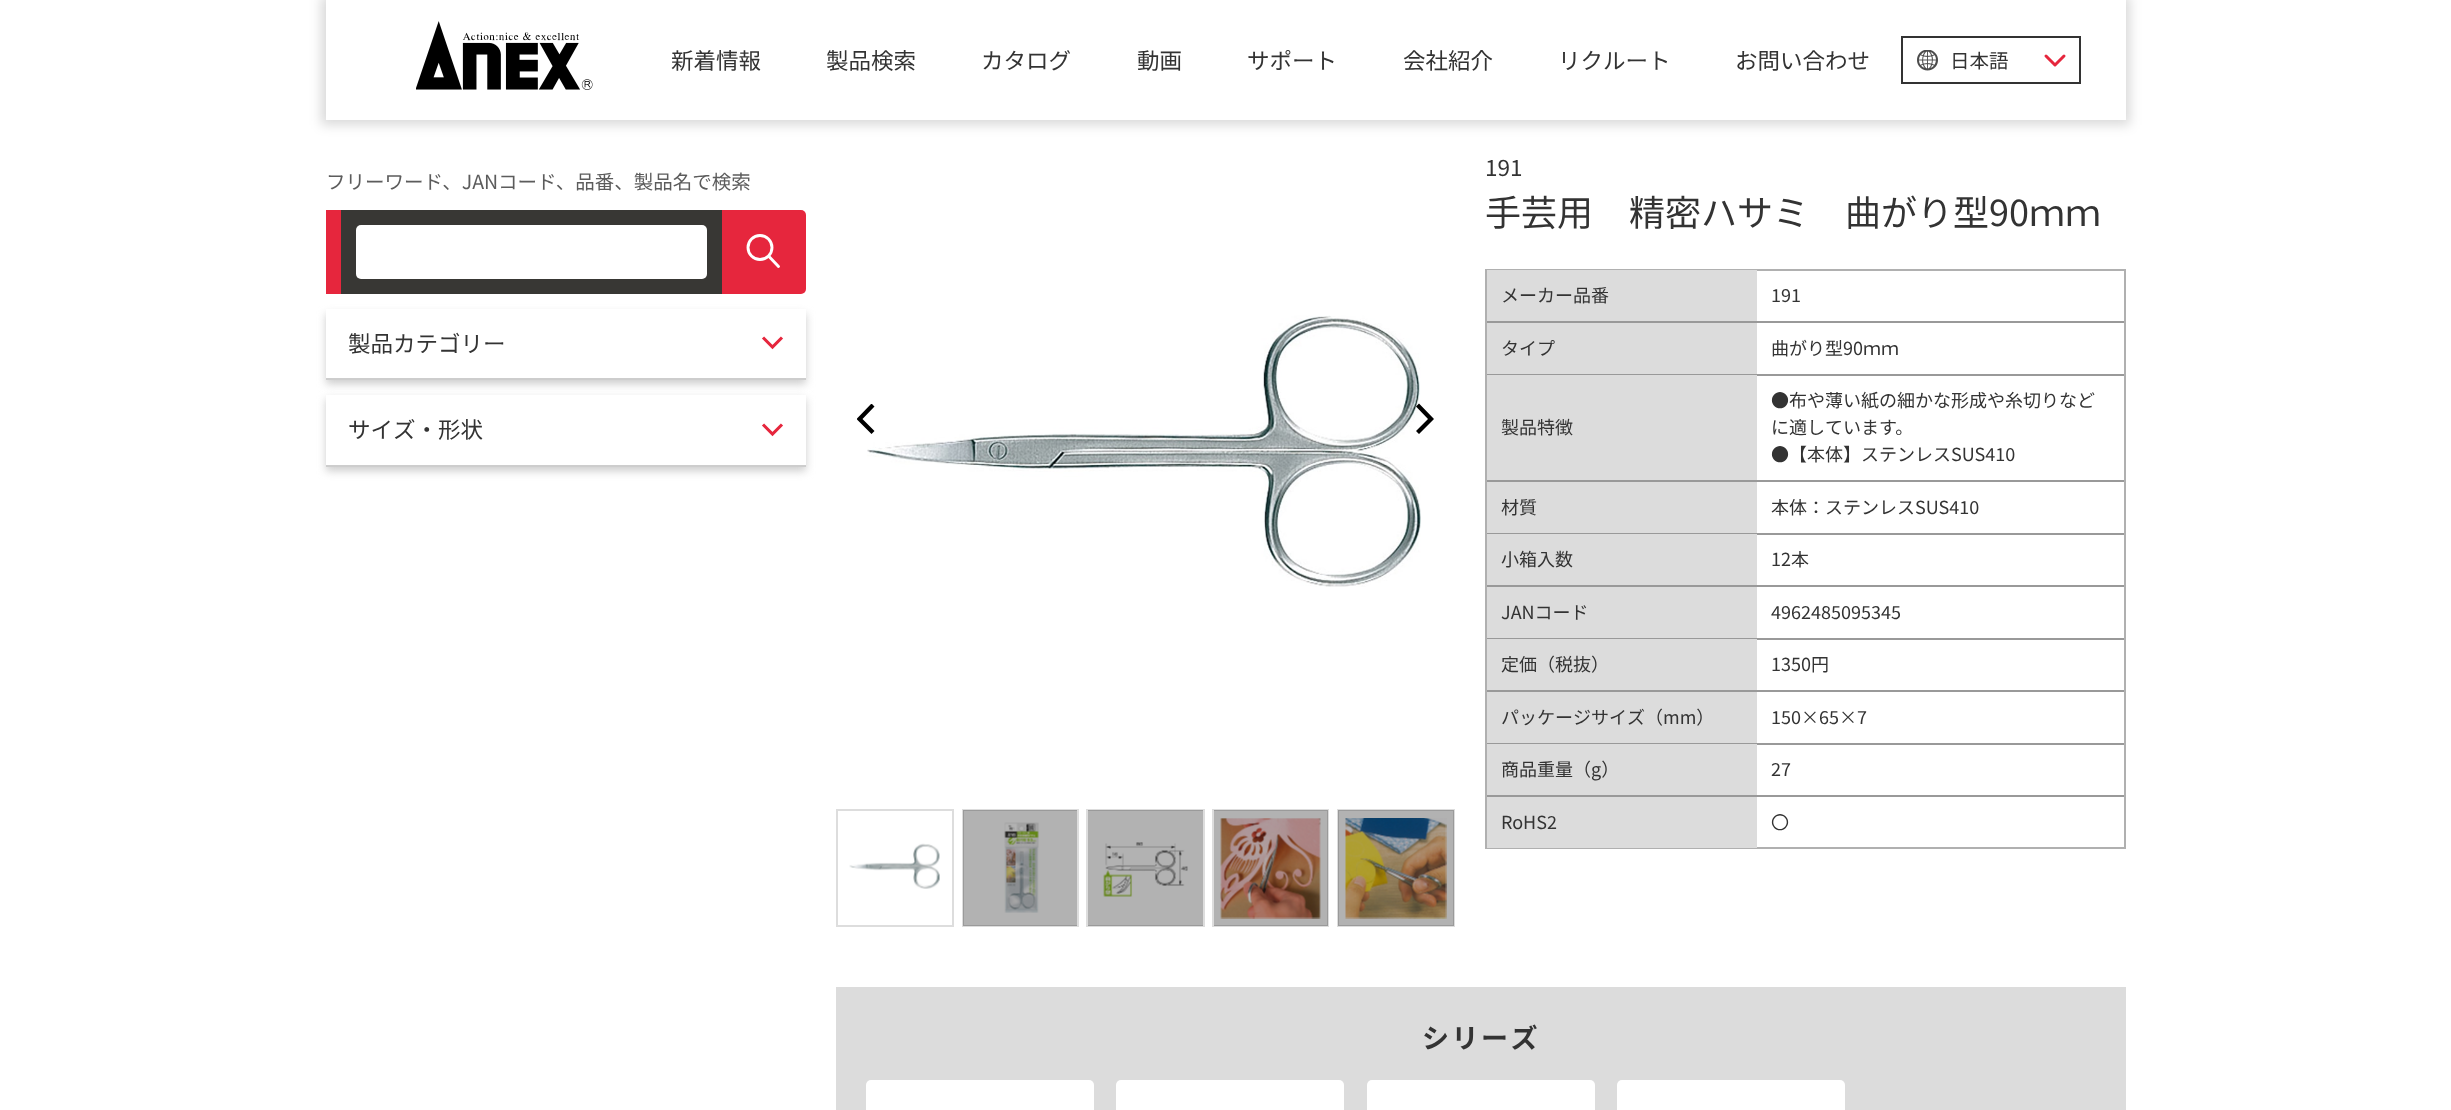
(async () => {
const canvas = document.querySelector("canvas")
canvas.width = 2451
canvas.height = 1110
const c = canvas.getContext("2d")
c.miterLimit = 4
c.fontKerning = "normal"
function T(s,x,y){c.fillText(s,x,y)}
function R(x,y,w,h){c.fillRect(x,y,w,h)}
function Q(x,y,w,h,r){c.beginPath();c.roundRect(x,y,w,h,r);c.fill()}
async function I(src,x,y,w,h){const img=new Image();img.src=src;await img.decode();c.drawImage(img,x,y,w,h)}
let path
c.fillStyle="#fff"
R(0,0,2451,1110)
c.fillStyle="#00000026"
c.filter="blur(6px)"
c.beginPath()
c.rect(321,-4,1809,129)
c.fill()
c.filter="none"
c.fillStyle="#fff"
R(326,0,1800,120)
await I("1.png",416,21,177,69)
c.font="22.5px Noto Sans JP"
c.fillStyle="#333"
T("新着情報",671,69)
T("製品検索",826,69)
T("カタログ",981,69)
T("動画",1137,69)
T("サポート",1247,69)
T("会社紹介",1403,69)
T("リクルート",1558,69)
T("お問い合わせ",1735,69)
await I("2.png",1917,50,21,21)
c.strokeStyle="#333"
c.lineWidth=2
c.strokeRect(1902,37,178,46)
c.font="19.5px Noto Sans JP"
T("日本語",1950,68)
path = new Path2D("M2046 56l9 9l9-9")
c.strokeStyle="#e6263d"
c.lineWidth=3
c.lineCap="round"
c.lineJoin="round"
c.stroke(path)
c.fillStyle="#5c5c5c"
T("フリーワード、JANコード、品番、製品名で検索",326,189)
c.fillStyle="#383734"
R(341,210,381,84)
c.fillStyle="#e6263d"
R(326,210,15,84)
c.fillStyle="#fff"
Q(356,225,351,54,5)
c.fillStyle="#e6263d"
c.beginPath()
c.roundRect(722,210,84,84,[0,5,5,0])
c.fill()
c.beginPath()
c.arc(760,247.5,12,0,7)
c.strokeStyle="#fff"
c.lineWidth=2.9
c.stroke()
path = new Path2D("M778.5 266.5l-9.5-10")
c.lineJoin="miter"
c.stroke(path)
c.fillStyle="#cdcdcd"
c.filter="blur(4.5px)"
c.beginPath()
c.rect(326,314,480,70)
c.fill()
c.filter="none"
c.fillStyle="#fff"
R(326,309,480,69)
c.fillStyle="#cdcdcd"
R(326,378,480,2)
c.font="22.5px Noto Sans JP"
c.fillStyle="#333"
T("製品カテゴリー",348,352)
path = new Path2D("M763 337.5l9.5 9.5l9.5-9.5")
c.strokeStyle="#e6263d"
c.lineWidth=3.1
c.lineCap="butt"
c.stroke(path)
c.fillStyle="#cdcdcd"
c.filter="blur(4.5px)"
c.beginPath()
c.rect(326,399,480,72)
c.fill()
c.filter="none"
c.fillStyle="#fff"
R(326,395,480,70)
c.fillStyle="#cdcdcd"
R(326,465,480,2)
c.fillStyle="#333"
T("サイズ・形状",348,438)
path = new Path2D("M763 424.5l9.5 9.5l9.5-9.5")
c.stroke(path)
await I("3.png",867,315,554,272)
c.save()
c.beginPath()
c.rect(857,404,18,31)
c.clip()
c.fillStyle="#000"
path = new Path2D("M871.5 403.5l3 3l-12 12.5l12 12l-3 3l-15-15z")
c.fill(path)
c.restore()
c.fillStyle="#000"
path = new Path2D("M1419 434l-3-3l12-12l-12-12.5l3-3l15 15.5z")
c.fill(path)
c.strokeStyle="#ddd"
c.lineWidth=2
c.strokeRect(837,810,116,116)
await I("4.png",849,843,91,46)
c.strokeRect(963,810,115,116)
await I("5.png",1004,822,35,91)
c.fillStyle="#0000004d"
R(963,810,114,116)
c.strokeRect(1087,810,117,116)
await I("6.png",1103,842,85,55)
R(1088,810,115,116)
c.strokeRect(1213,810,115,116)
await I("7.png",1220,818,101,101)
R(1214,810,114,116)
c.strokeRect(1338,810,116,116)
await I("8.png",1345,818,102,101)
R(1338,810,116,116)
c.fillStyle="#333"
T("191",1485,176)
c.font="36px Noto Sans JP"
T("手芸用　精密ハサミ　曲がり型90ｍｍ",1485,226)
c.strokeStyle="#b0b0b0"
c.strokeRect(1486,270,639,578)
c.fillStyle="#999"
R(1487,321,637,2)
c.fillStyle="#dcdcdc"
R(1487,270,270,51)
c.font="18px Noto Sans JP"
c.fillStyle="#333"
T("メーカー品番",1501,302)
T("191",1771,302)
c.fillStyle="#999"
R(1487,374,637,2)
c.fillStyle="#dcdcdc"
R(1487,323,270,51)
c.fillStyle="#333"
T("タイプ",1501,355)
T("曲がり型90ｍｍ",1771,355)
c.fillStyle="#999"
R(1487,480,637,2)
c.fillStyle="#dcdcdc"
R(1487,375,270,105)
c.fillStyle="#333"
T("製品特徴",1501,434)
T("●布や薄い紙の細かな形成や糸切りなど",1771,407)
T("に適しています。",1771,434)
T("●【本体】ステンレスSUS410",1771,461)
c.fillStyle="#999"
R(1487,533,637,2)
c.fillStyle="#dcdcdc"
R(1487,482,270,51)
c.fillStyle="#333"
T("材質",1501,514)
T("本体：ステンレスSUS410",1771,514)
c.fillStyle="#999"
R(1487,585,637,2)
c.fillStyle="#dcdcdc"
R(1487,534,270,51)
c.fillStyle="#333"
T("小箱入数",1501,566)
T("12本",1771,566)
c.fillStyle="#999"
R(1487,638,637,2)
c.fillStyle="#dcdcdc"
R(1487,587,270,51)
c.fillStyle="#333"
T("JANコード",1501,619)
T("4962485095345",1771,619)
c.fillStyle="#999"
R(1487,690,637,2)
c.fillStyle="#dcdcdc"
R(1487,639,270,51)
c.fillStyle="#333"
T("定価（税抜）",1501,671)
T("1350円",1771,671)
c.fillStyle="#999"
R(1487,743,637,2)
c.fillStyle="#dcdcdc"
R(1487,692,270,51)
c.fillStyle="#333"
T("パッケージサイズ（mm）",1501,724)
T("150×65×7",1771,724)
c.fillStyle="#999"
R(1487,795,637,2)
c.fillStyle="#dcdcdc"
R(1487,744,270,51)
c.fillStyle="#333"
T("商品重量（g）",1501,776)
T("27",1771,776)
c.fillStyle="#dcdcdc"
R(1487,797,270,51)
c.fillStyle="#333"
T("RoHS2",1501,829)
T("〇",1771,829)
c.fillStyle="#dcdcdc"
R(836,987,1290,123)
c.letterSpacing="2.5px"
c.font="bold 27px Noto Sans JP"
c.fillStyle="#333"
T("シリーズ",1422,1048)
c.fillStyle="#fff"
Q(866,1080,228,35,5)
Q(1116,1080,228,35,5)
Q(1367,1080,228,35,5)
Q(1617,1080,228,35,5)
})()
